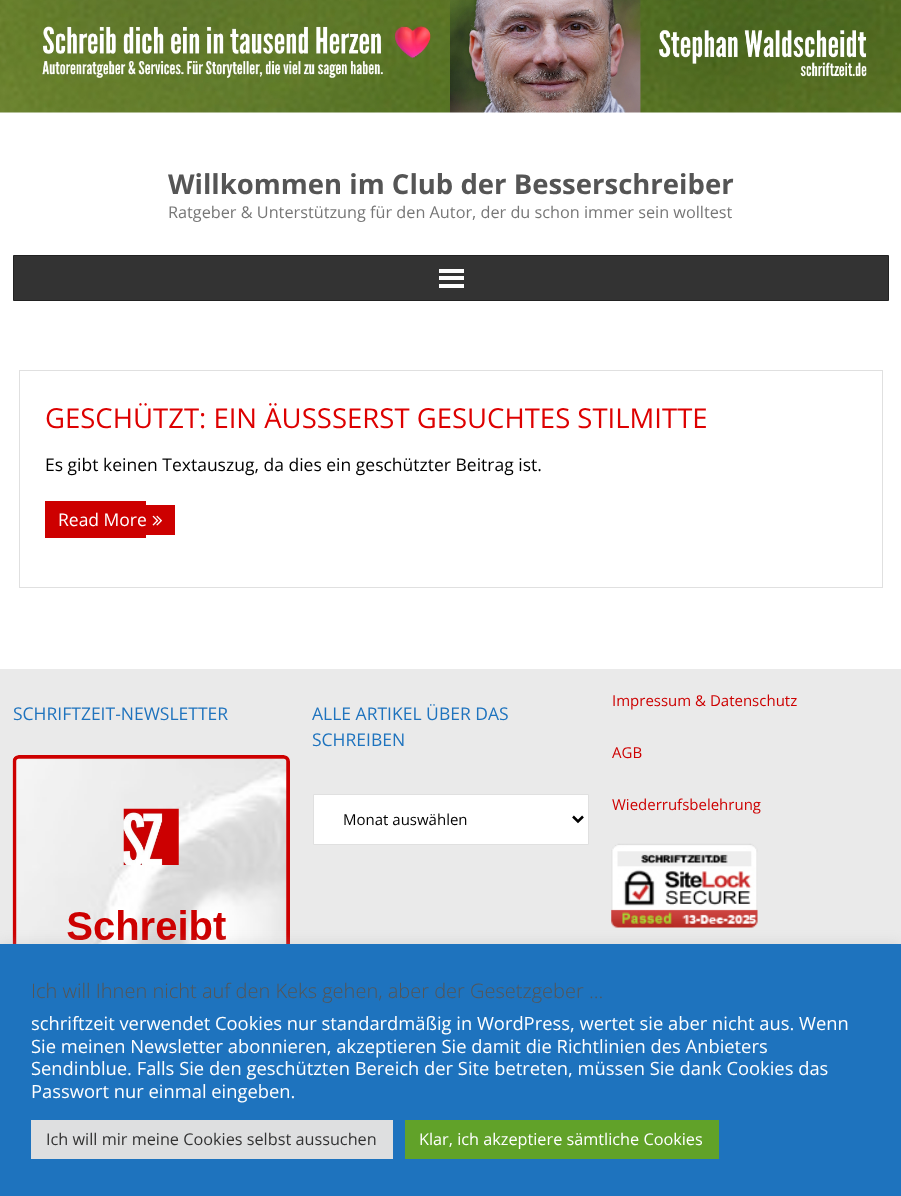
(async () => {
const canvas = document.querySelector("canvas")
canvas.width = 901
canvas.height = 1196
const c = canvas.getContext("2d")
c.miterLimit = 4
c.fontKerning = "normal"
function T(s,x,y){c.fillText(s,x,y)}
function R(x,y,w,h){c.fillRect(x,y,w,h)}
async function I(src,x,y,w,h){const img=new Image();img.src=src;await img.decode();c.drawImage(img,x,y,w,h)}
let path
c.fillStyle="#fff"
R(0,0,901,1196)
await I("1.png",0,0,901,113)
c.font="bold 27.5px Open Sans"
c.fillStyle="#555"
T("Willkommen im Club der Besserschreiber",168,194)
c.font="16.25px Open Sans"
c.fillStyle="#777"
T("Ratgeber & Unterstützung für den Autor, der du schon immer sein wolltest",168,218)
c.fillStyle="#333"
c.beginPath()
c.rect(13.5,255.5,875,45)
c.fill()
c.strokeStyle="#222"
c.stroke()
c.fillStyle="#fff"
R(439,269,25,4)
R(439,276,25,4)
R(439,284,25,4)
c.strokeStyle="#e0e0e0"
c.strokeRect(19.5,370.5,863,217)
c.font="27.5px Open Sans"
c.fillStyle="#d00"
T("GESCHÜTZT: EIN ÄUSS",45,428)
T("SERST GESUCHTES STILMITTE",332,428)
c.font="17.5px Open Sans"
c.fillStyle="#000"
T("Es gibt keinen Textauszug, da dies ein geschützter Beitrag ist.",45,471)
c.fillStyle="#cd0000"
R(45,501,101,37)
c.fillStyle="#fff"
T("Read More",58,526)
c.fillStyle="#cd0000"
R(146,505,29,30)
await I("2.png",152,515,10,11)
c.fillStyle="#eaeaea"
R(0,669,901,275)
c.fillStyle="#1e73be"
T("SCHRIFTZEIT-NEWSLETTER",13,720)
await I("3.png",12,755,278,189)
T("ALLE ARTIKEL ÜBER DAS",312,720)
T("SCHREIBEN",312,746)
c.fillStyle="#fff"
c.beginPath()
c.rect(313.5,794.5,275,50)
c.fill()
c.stroke()
path = new Path2D("M573 816.5l5 5l5-5")
c.strokeStyle="#000"
c.lineWidth=2.5
c.stroke(path)
c.font="15px Open Sans"
c.fillStyle="#000"
T("Monat auswählen",343,825)
c.fillStyle="#cd0000"
T("Impressum & Datenschutz",612,706)
T("AGB",612,758)
T("Wiederrufsbelehrung",612,810)
await I("4.png",611,843,147,85)
c.fillStyle="#acabab4d"
c.filter="blur(6px)"
c.beginPath()
c.rect(0,943,901,252)
c.fill()
c.filter="none"
c.fillStyle="#1e73be"
R(0,944,901,252)
c.font="300 20px Open Sans"
c.fillStyle="#555"
T("Ich will Ihnen nicht auf den Keks gehen, aber der Gesetzgeber ...",31,998)
c.font="18.35px Open Sans"
c.fillStyle="#fff"
T("schriftzeit verwendet Cookies nur standardmäßig in WordPress, wertet sie aber nicht aus. Wenn",31,1030)
T("Sie meinen Newsletter abonnieren, akzeptieren Sie damit die Richtlinien des Anbieters",31,1053)
T("Sendinblue. Falls Sie den geschützten Bereich der Site betreten, müssen Sie dank Cookies das",31,1075)
T("Passwort nur einmal eingeben.",31,1098)
c.fillStyle="#dedfe0"
R(31,1120,362,39)
c.font="16.25px Open Sans"
c.fillStyle="#333"
T("Ich will mir meine Cookies selbst aussuchen",46,1145)
c.fillStyle="#61a229"
R(405,1120,314,39)
c.fillStyle="#fff"
T("Klar, ich akzeptiere sämtliche Cookies",419,1145)
})()
